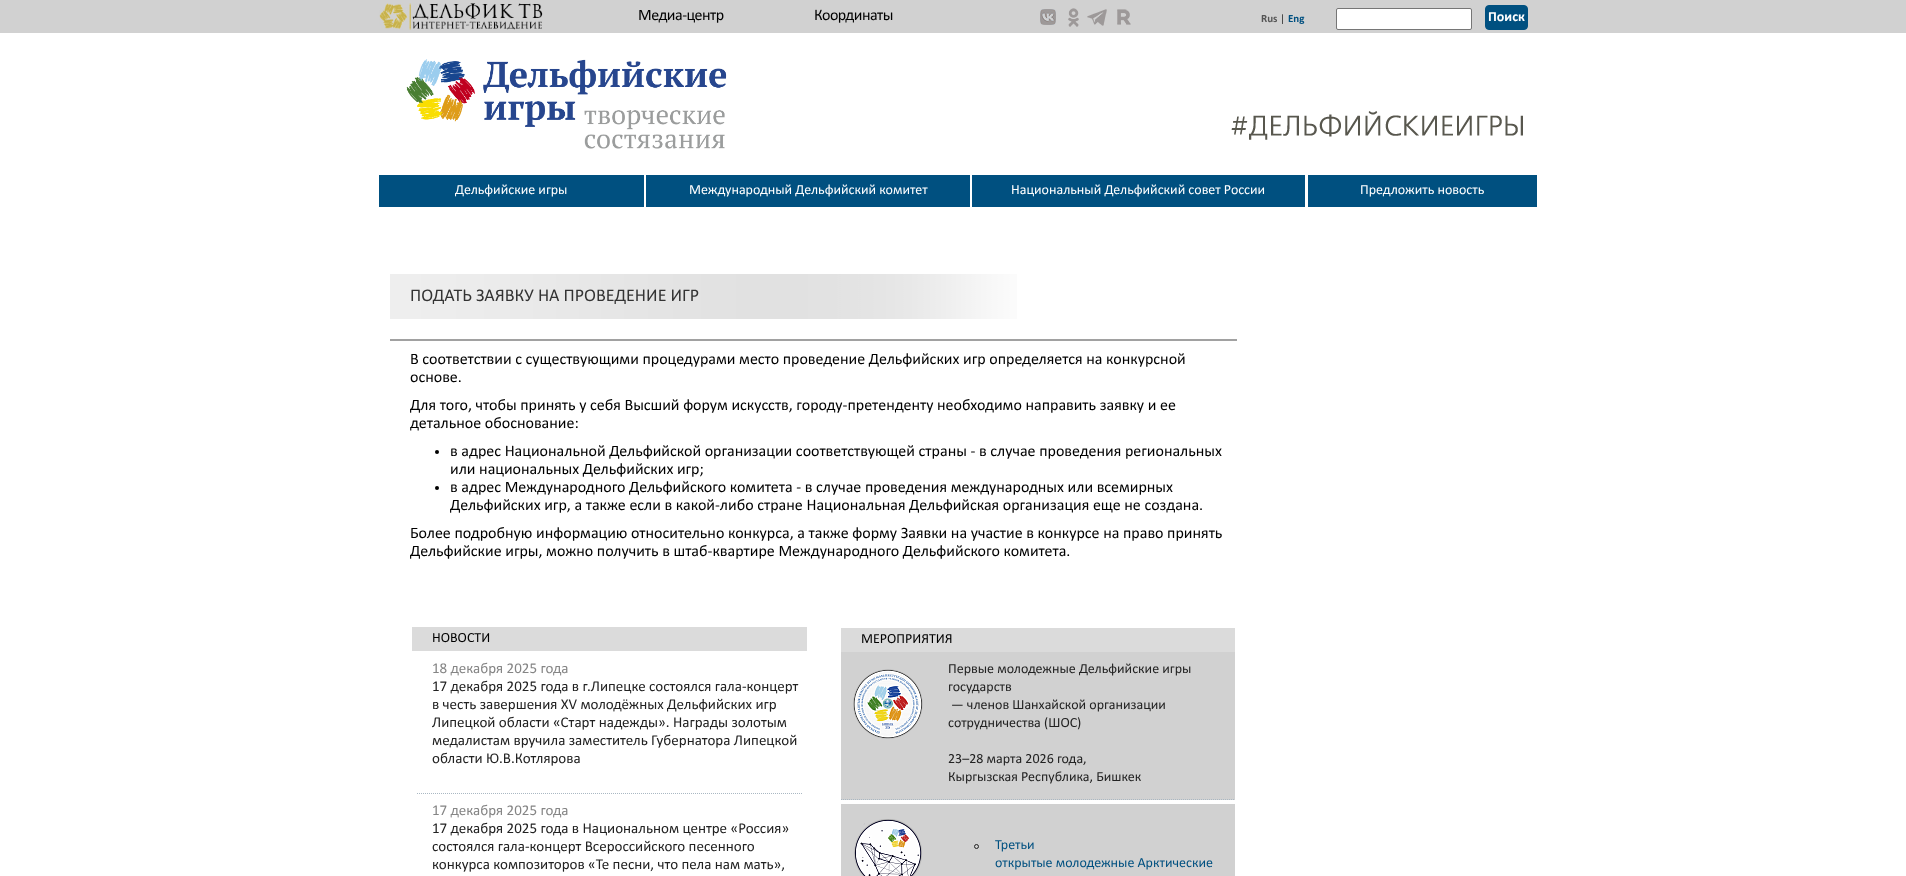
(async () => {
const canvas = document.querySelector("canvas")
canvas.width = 1906
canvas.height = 876
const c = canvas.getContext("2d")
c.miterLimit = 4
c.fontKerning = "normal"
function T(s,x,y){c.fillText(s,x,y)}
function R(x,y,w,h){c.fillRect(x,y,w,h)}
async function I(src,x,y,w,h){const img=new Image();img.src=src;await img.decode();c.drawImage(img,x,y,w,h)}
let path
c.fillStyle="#fff"
R(0,0,1906,876)
c.fillStyle="#d1d1d1"
R(0,0,1906,33)
await I("1.png",379,3,164,27)
c.letterSpacing="-0.5px"
c.font="16px Calibri"
c.fillStyle="#000"
T("Медиа-центр",638,20)
T("Координаты",814,20)
await I("2.png",1040,9,16,16)
await I("3.png",1068,8,11,19)
await I("4.png",1087,9,20,17)
await I("5.png",1117,9,14,16)
c.letterSpacing="0px"
c.font="bold 11px Calibri"
c.fillStyle="#555"
T("Rus",1261,22)
c.font="11px Calibri"
c.fillStyle="#333"
T("|",1280,22)
c.font="bold 11px Calibri"
c.fillStyle="#005080"
T("Eng",1288,22)
c.fillStyle="#fff"
c.beginPath()
c.roundRect(1336.5,8.5,135,21,1.5)
c.fill()
c.strokeStyle="#767676"
c.stroke()
c.fillStyle="#005080"
c.beginPath()
c.roundRect(1485.5,5.5,42,24,3.5)
c.fill()
c.strokeStyle="#005080"
c.stroke()
c.font="bold 14px Calibri"
c.fillStyle="#fff"
T("Поиск",1488,21)
await I("6.png",406,59,321,90)
await I("7.png",1231,111,292,29)
c.fillStyle="#005080"
R(379,175,265,32)
c.font="14px Calibri"
c.fillStyle="#fff"
T("Дельфийские игры",455,194)
c.fillStyle="#005080"
R(646,175,324,32)
c.fillStyle="#fff"
T("Международный Дельфийский комитет",689,194)
c.fillStyle="#005080"
R(972,175,333,32)
c.fillStyle="#fff"
T("Национальный Дельфийский совет России",1011,194)
c.fillStyle="#005080"
R(1308,175,229,32)
c.fillStyle="#fff"
T("Предложить новость",1360,194)
c.fillStyle="#a1a1a1"
R(390,339,847,2)
await I("8.png",390,274,627,45)
c.font="18px Calibri"
c.fillStyle="#333"
T("ПОДАТЬ ЗАЯВКУ НА ПРОВЕДЕНИЕ ИГР",410,301)
c.font="16px Calibri"
c.fillStyle="#000"
T("В соответствии с существующими процедурами место проведение Дельфийских игр определяется на конкурсной",410,364)
T("основе.",410,382)
T("Для того, чтобы принять у себя Высший форум искусств, городу-претенденту необходимо направить заявку и ее",410,410)
T("детальное обоснование:",410,428)
c.beginPath()
c.arc(437,452,2,0,7)
c.fill()
T("в адрес Национальной Дельфийской организации соответствующей страны - в случае проведения региональных",450,456)
T("или национальных Дельфийских игр;",450,474)
c.beginPath()
c.arc(437,488,2,0,7)
c.fill()
T("в адрес Международного Дельфийского комитета - в случае проведения международных или всемирных",450,492)
T("Дельфийских игр, а также если в какой-либо стране Национальная Дельфийская организация еще не создана.",450,510)
T("Более подробную информацию относительно конкурса, а также форму Заявки на участие в конкурсе на право принять",410,538)
T("Дельфийские игры, можно получить в штаб-квартире Международного Дельфийского комитета.",410,556)
c.fillStyle="#dbdbdb"
R(412,627,395,24)
c.font="14px Calibri"
c.fillStyle="#000"
T("НОВОСТИ",432,642)
path = new Path2D("M417 793.5h385")
c.strokeStyle="#aab8c3"
c.setLineDash([1,1])
c.stroke(path)
c.font="15px Calibri"
c.fillStyle="#858585"
T("18 декабря 2025 года",432,673)
c.fillStyle="#222"
T("17 декабря 2025 года в г.Липецке состоялся гала-концерт",432,691)
T("в честь завершения XV молодёжных Дельфийских игр",432,709)
T("Липецкой области «Старт надежды». Награды золотым",432,727)
T("медалистам вручила заместитель Губернатора Липецкой",432,745)
T("области Ю.В.Котлярова",432,763)
c.fillStyle="#858585"
T("17 декабря 2025 года",432,815)
c.fillStyle="#222"
T("17 декабря 2025 года в Национальном центре «Россия»",432,833)
T("состоялся гала-концерт Всероссийского песенного",432,851)
T("конкурса композиторов «Те песни, что пела нам мать»,",432,869)
c.fillStyle="#dbdbdb"
R(841,628,394,24)
c.font="14px Calibri"
c.fillStyle="#000"
T("МЕРОПРИЯТИЯ",861,643)
c.fillStyle="#d1d1d1"
R(841,652,394,148)
path = new Path2D("M841 799.5h394")
c.stroke(path)
await I("9.png",853,669,70,70)
c.fillStyle="#222"
T("Первые молодежные Дельфийские игры",948,673)
T("государств",948,691)
T("— членов Шанхайской организации",951,709)
T("сотрудничества (ШОС)",948,727)
T("23–28 марта 2026 года,",948,763)
T("Кыргызская Республика, Бишкек",948,781)
c.fillStyle="#d1d1d1"
R(841,804,394,72)
await I("10.png",854,819,68,57)
c.beginPath()
c.arc(976.5,846.5,2,0,7)
c.strokeStyle="#222"
c.setLineDash([])
c.stroke()
c.fillStyle="#005080"
T("Третьи",995,849)
T("открытые молодежные Арктические",995,867)
})()
